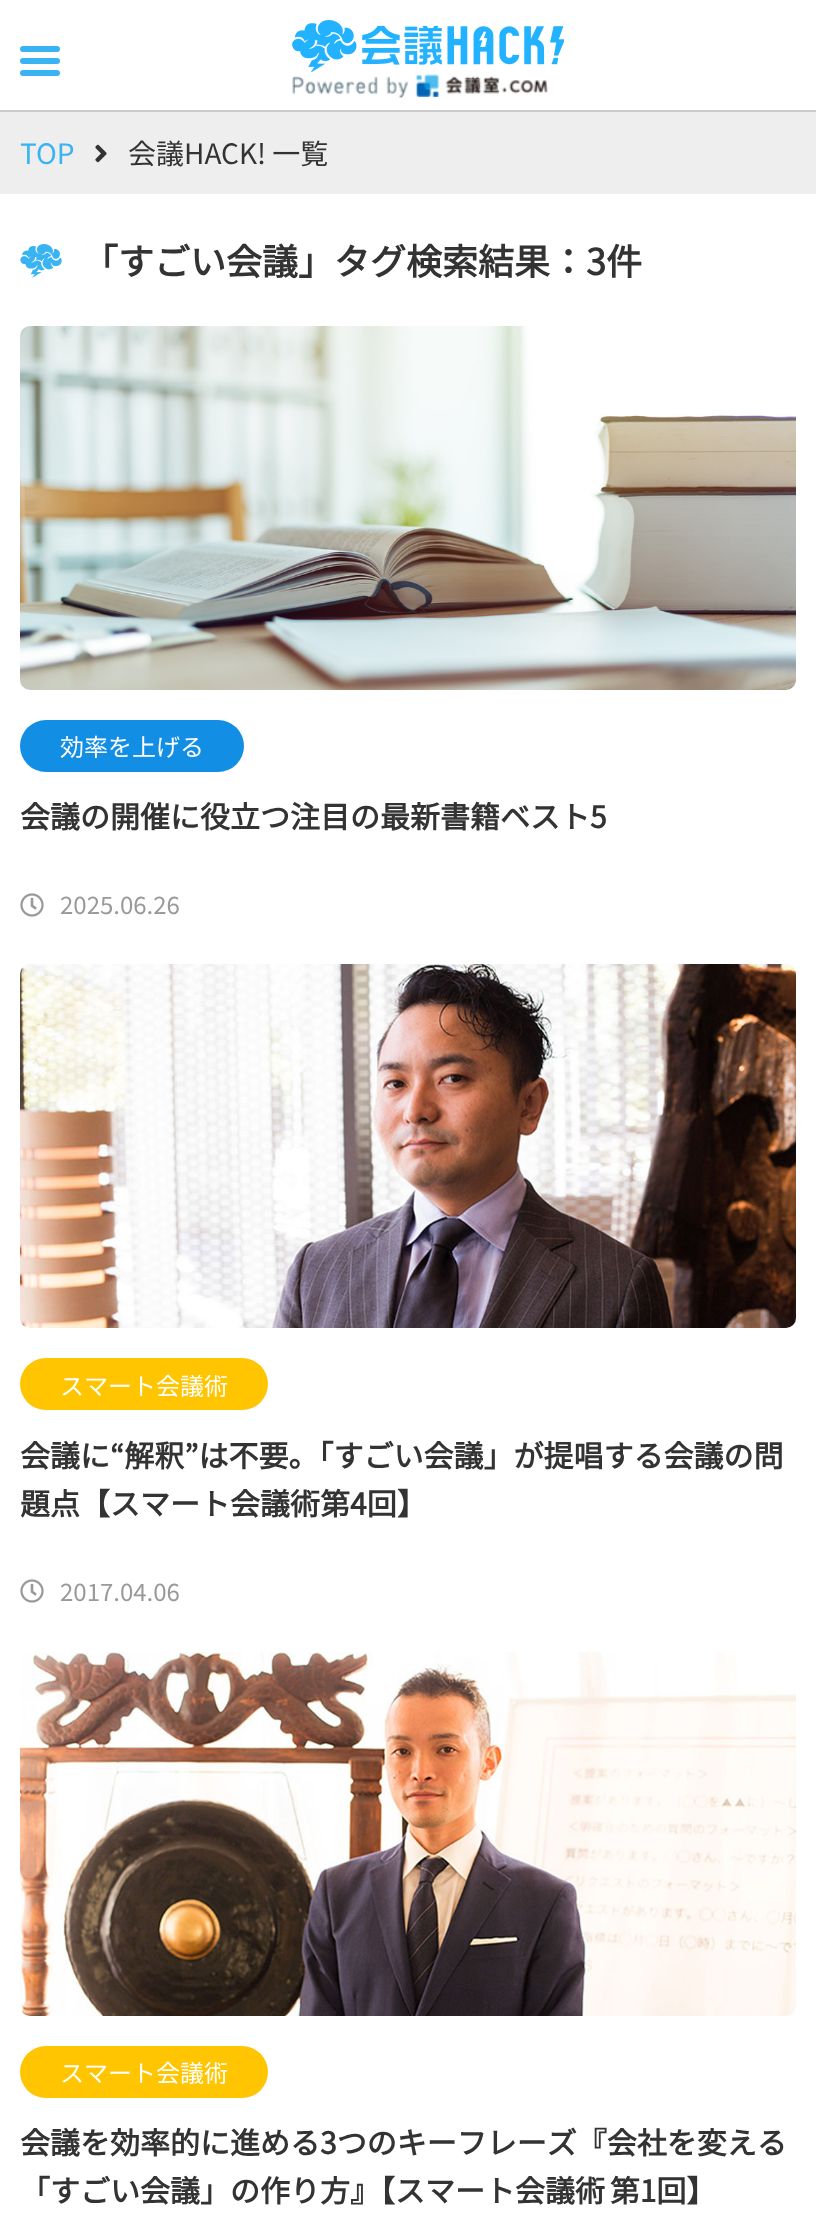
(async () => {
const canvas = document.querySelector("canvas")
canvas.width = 816
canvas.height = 2214
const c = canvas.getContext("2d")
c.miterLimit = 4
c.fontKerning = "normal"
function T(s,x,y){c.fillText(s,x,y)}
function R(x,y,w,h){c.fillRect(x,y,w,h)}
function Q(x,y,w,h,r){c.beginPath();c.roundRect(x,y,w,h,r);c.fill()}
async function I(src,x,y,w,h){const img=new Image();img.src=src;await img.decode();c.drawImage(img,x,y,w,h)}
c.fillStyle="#fff"
R(0,0,816,2214)
c.fillStyle="#ccc"
R(0,110,816,2)
c.fillStyle="#3ab3f3"
Q(20,46,40,6,3)
Q(20,58,40,6,3)
Q(20,70,40,6,3)
await I("1.png",292,20,272,52)
await I("2.png",292,74,256,24)
c.fillStyle="#eee"
R(0,112,816,82)
c.font="100 28px Noto Sans JP"
c.fillStyle="#3ab3f3"
T("TOP",20,164)
await I("3.png",95,144,12,19)
c.fillStyle="#333"
T("会議HACK! 一覧",128,164)
await I("4.png",20,244,42,34)
c.font="bold 36px Noto Sans JP"
T("「すごい会議」タグ検索結果：3件",82,275)
await I("5.png",20,326,776,364)
c.fillStyle="#138ee5"
Q(20,720,224,52,26)
c.font="100 24px Noto Sans JP"
c.fillStyle="#fff"
T("効率を上げる",60,756)
c.font="bold 30px Noto Sans JP"
c.fillStyle="#333"
T("会議の開催に役立つ注目の最新書籍ベスト5",20,828)
await I("6.png",20,893,24,24)
c.font="100 24px Noto Sans JP"
c.fillStyle="#999"
T("2025.06.26",60,914)
await I("7.png",20,964,776,364)
c.fillStyle="#ffc501"
Q(20,1358,248,52,26)
c.fillStyle="#fff"
T("スマート会議術",60,1395)
c.font="bold 30px Noto Sans JP"
c.fillStyle="#333"
T("会議に“解釈”は不要。「すごい会議」が提唱する会議の問",20,1467)
T("題点【スマート会議術第4回】",20,1515)
await I("6.png",20,1579,24,24)
c.font="100 24px Noto Sans JP"
c.fillStyle="#999"
T("2017.04.06",60,1601)
await I("8.png",20,1652,776,364)
c.fillStyle="#ffc501"
Q(20,2046,248,52,26)
c.fillStyle="#fff"
T("スマート会議術",60,2082)
c.font="bold 30px Noto Sans JP"
c.fillStyle="#333"
T("会議を効率的に進める3つのキーフレーズ『会社を変える",20,2154)
c.wordSpacing="-2px"
T("「すごい会議」の作り方』【スマート会議術 第1回】",20,2202)
})()
